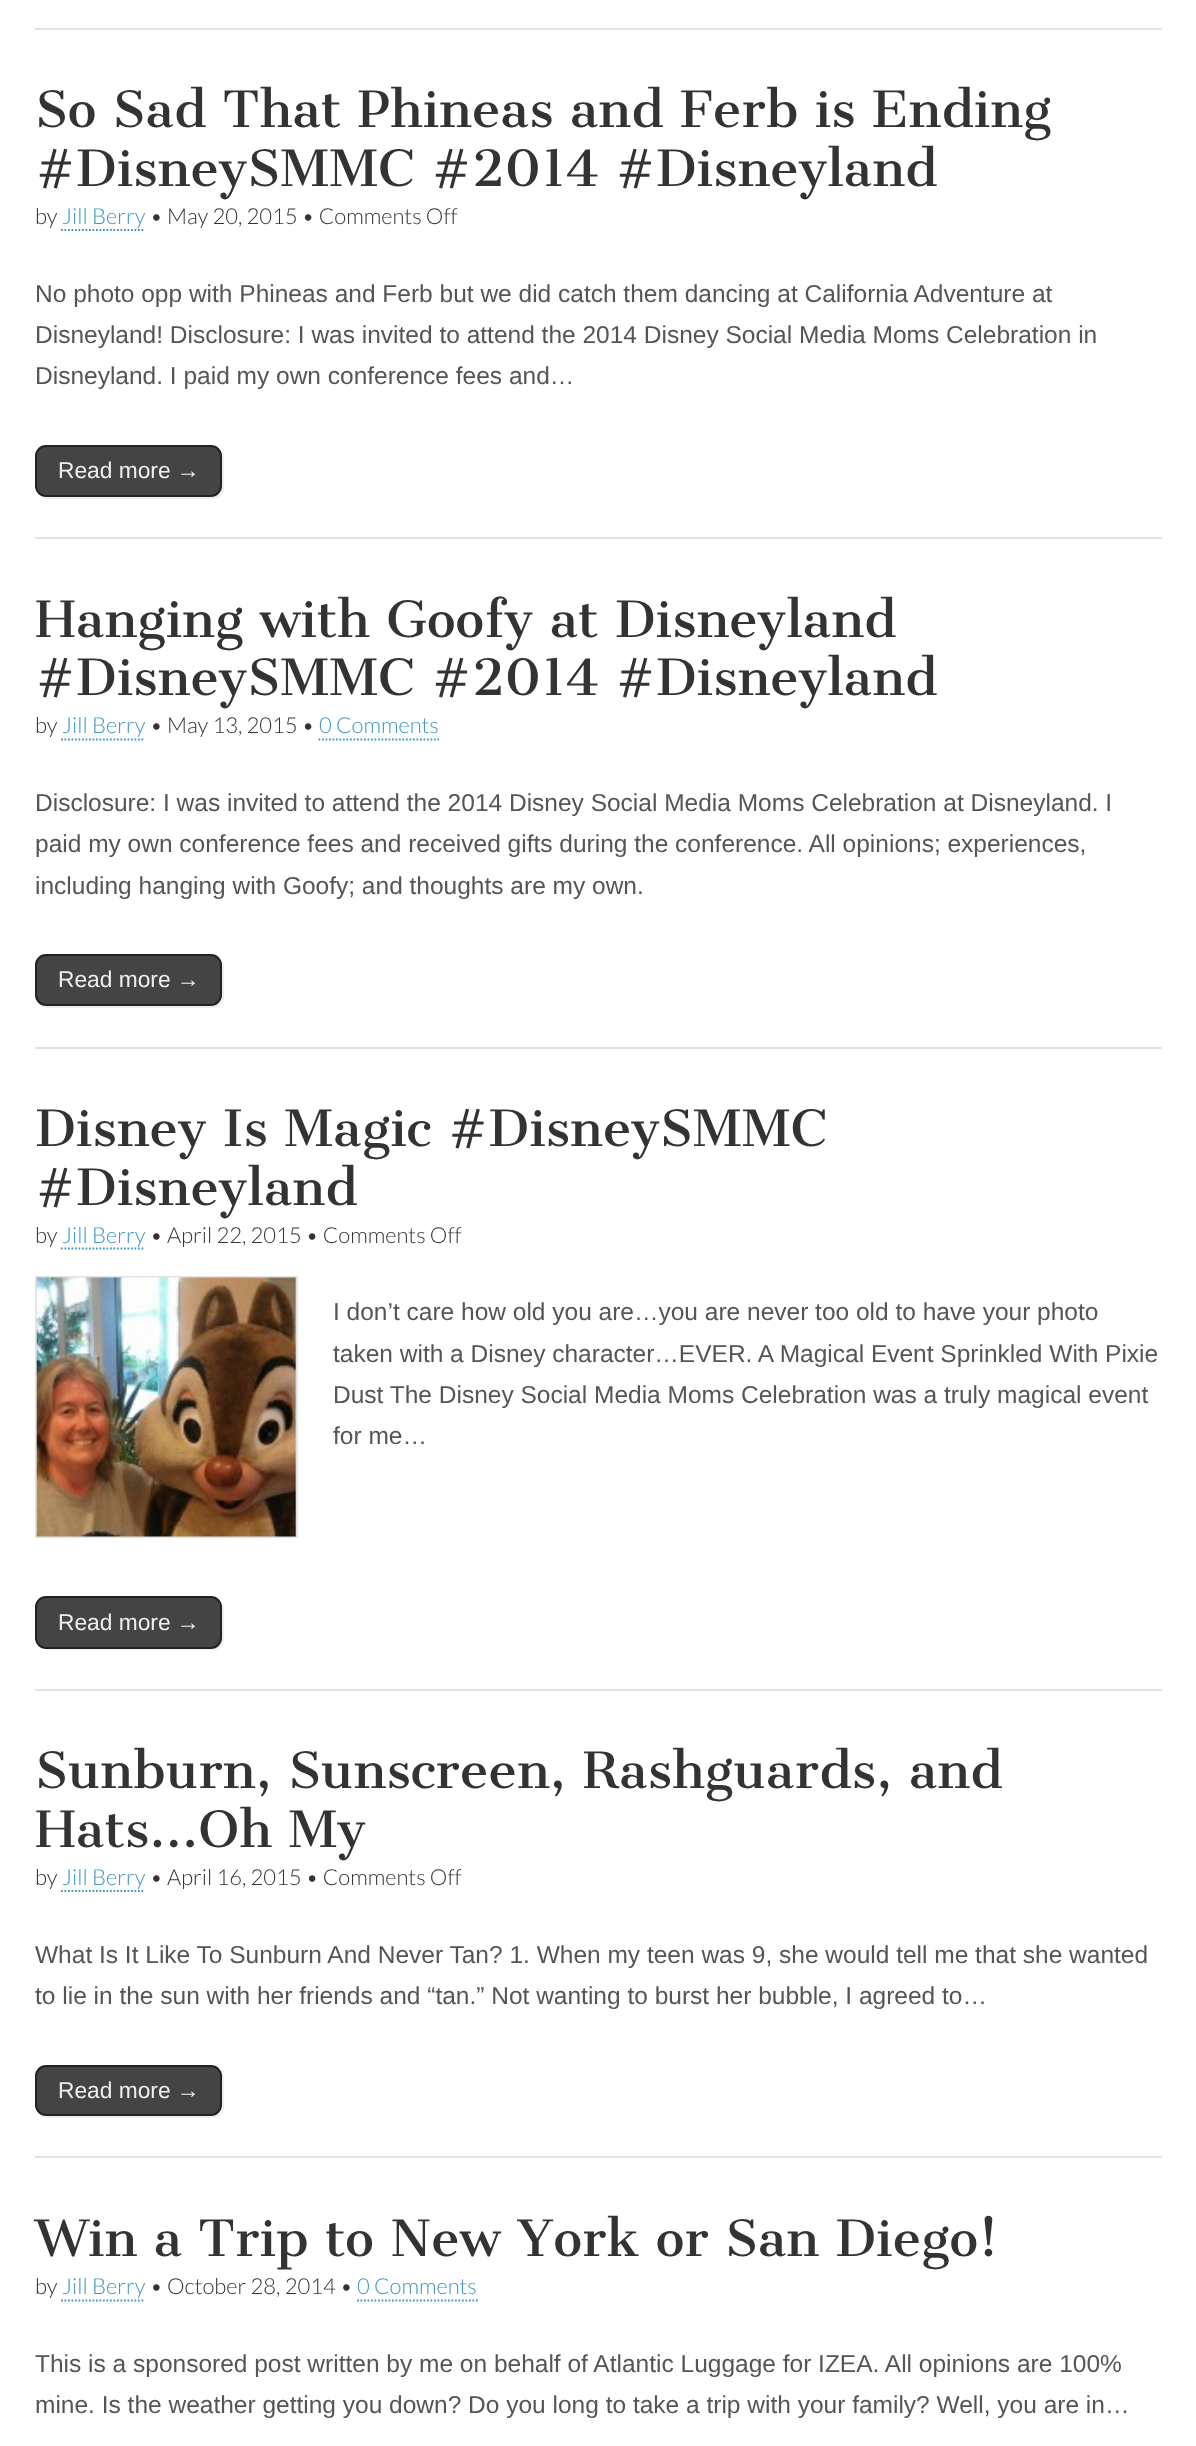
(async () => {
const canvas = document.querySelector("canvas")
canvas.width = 1196
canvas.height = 2446
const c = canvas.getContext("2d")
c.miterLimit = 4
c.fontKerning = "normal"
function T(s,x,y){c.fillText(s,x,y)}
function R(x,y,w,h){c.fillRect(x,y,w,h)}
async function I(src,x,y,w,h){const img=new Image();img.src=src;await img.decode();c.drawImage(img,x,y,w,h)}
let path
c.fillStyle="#fff"
R(0,0,1196,2446)
c.fillStyle="#e2e2e2"
R(35,28,1127,2)
c.font="49px Cantata One"
c.fillStyle="#333"
T("So Sad That Phineas and Ferb is Ending",35,127)
T("#DisneySMMC #2014 #Disneyland",35,186)
c.font="300 22px Lato"
T("by",35,224)
c.fillStyle="#3d97c2"
T("Jill Berry",62,224)
path = new Path2D("M61 230h84")
c.strokeStyle="#3d97c2"
c.lineWidth=1.8
c.setLineDash([1.75,1.75])
c.stroke(path)
c.fillStyle="#333"
T("• May 20, 2015 • Comments Off",150,224)
c.fillStyle="#e2e2e2"
R(35,537,1127,2)
c.font="24.5px Liberation Sans"
c.fillStyle="#555"
T("No photo opp with Phineas and Ferb but we did catch them dancing at California Adventure at",35,302)
T("Disneyland! Disclosure: I was invited to attend the 2014 Disney Social Media Moms Celebration in",35,343)
T("Disneyland. I paid my own conference fees and…",35,384)
c.fillStyle="#eee"
path = new Path2D("M40 495c2 3 5 4 8 4h165c6 0 11-5 11-11v-31c0-3-2-6-4-8c1 1 2 4 2 6v31c0 6-4 11-10 11h-166c-3 0-5-1-6-2z")
c.fill(path)
c.fillStyle="#444"
c.beginPath()
c.roundRect(36,446,185,50,10)
c.fill()
c.strokeStyle="#222"
c.lineWidth=2
c.setLineDash([])
c.stroke()
c.font="22.75px Liberation Sans"
c.fillStyle="#eee"
T("Read more →",58,478)
c.font="49px Cantata One"
c.fillStyle="#333"
T("Hanging with Goofy at Disneyland",35,637)
T("#DisneySMMC #2014 #Disneyland",35,695)
c.font="300 22px Lato"
T("by",35,733)
c.fillStyle="#3d97c2"
T("Jill Berry",62,733)
path = new Path2D("M61 739.5h84")
c.strokeStyle="#3d97c2"
c.lineWidth=1.8
c.setLineDash([1.75,1.75])
c.stroke(path)
c.fillStyle="#333"
T("• May 13, 2015 •",150,733)
c.fillStyle="#3d97c2"
T("0 Comments",319,733)
path = new Path2D("M318.5 739.5h120.5")
c.stroke(path)
c.fillStyle="#e2e2e2"
R(35,1047,1127,2)
c.font="24.5px Liberation Sans"
c.fillStyle="#555"
T("Disclosure: I was invited to attend the 2014 Disney Social Media Moms Celebration at Disneyland. I",35,811)
T("paid my own conference fees and received gifts during the conference. All opinions; experiences,",35,852)
T("including hanging with Goofy; and thoughts are my own.",35,894)
c.fillStyle="#eee"
path = new Path2D("M40 1005c2 2 5 3 8 3h165c6 0 11-5 11-11v-30c0-3-1-5-3-7c1 1 1 3 1 4v32c0 6-4 10-10 10h-166c-2 0-4 0-6-1z")
c.fill(path)
c.fillStyle="#444"
c.beginPath()
c.roundRect(36,955,185,50,10)
c.fill()
c.strokeStyle="#222"
c.lineWidth=2
c.setLineDash([])
c.stroke()
c.font="22.75px Liberation Sans"
c.fillStyle="#eee"
T("Read more →",58,987)
c.font="49px Cantata One"
c.fillStyle="#333"
T("Disney Is Magic #DisneySMMC",35,1146)
T("#Disneyland",35,1205)
c.font="300 22px Lato"
T("by",35,1243)
c.fillStyle="#3d97c2"
T("Jill Berry",62,1243)
path = new Path2D("M61 1248.5h84")
c.strokeStyle="#3d97c2"
c.lineWidth=1.8
c.setLineDash([1.75,1.75])
c.stroke(path)
c.fillStyle="#333"
T("• April 22, 2015 • Comments Off",150,1243)
c.fillStyle="#e2e2e2"
R(35,1689,1127,2)
c.strokeStyle="#e2e2e2"
c.lineWidth=2
c.setLineDash([])
c.strokeRect(36,1277,261,260)
await I("1.png",36,1277,260,260)
c.font="24.5px Liberation Sans"
c.fillStyle="#555"
T("I don’t care how old you are…you are never too old to have your photo",333,1320)
T("taken with a Disney character…EVER. A Magical Event Sprinkled With Pixie",333,1362)
T("Dust The Disney Social Media Moms Celebration was a truly magical event",333,1403)
T("for me…",333,1444)
c.fillStyle="#eee"
path = new Path2D("M41 1647c2 2 4 3 7 3h165c6 0 11-5 11-11v-30c0-3-1-6-3-8c1 2 1 4 1 5v32c0 6-4 10-10 10h-166c-2 0-4 0-5-1z")
c.fill(path)
c.fillStyle="#444"
c.beginPath()
c.roundRect(36,1597,185,51,10)
c.fill()
c.strokeStyle="#222"
c.stroke()
c.font="22.75px Liberation Sans"
c.fillStyle="#eee"
T("Read more →",58,1630)
c.font="49px Cantata One"
c.fillStyle="#333"
T("Sunburn, Sunscreen, Rashguards, and",35,1788)
T("Hats…Oh My",35,1847)
c.font="300 22px Lato"
T("by",35,1885)
c.fillStyle="#3d97c2"
T("Jill Berry",62,1885)
path = new Path2D("M61 1891h84")
c.strokeStyle="#3d97c2"
c.lineWidth=1.8
c.setLineDash([1.75,1.75])
c.stroke(path)
c.fillStyle="#333"
T("• April 16, 2015 • Comments Off",150,1885)
c.fillStyle="#e2e2e2"
R(35,2156,1127,2)
c.font="24.5px Liberation Sans"
c.fillStyle="#555"
T("What Is It Like To Sunburn And Never Tan? 1. When my teen was 9, she would tell me that she wanted",35,1963)
T("to lie in the sun with her friends and “tan.” Not wanting to burst her bubble, I agreed to…",35,2004)
c.fillStyle="#eee"
path = new Path2D("M39 2114c2 2 5 4 9 4h165c6 0 11-5 11-11v-29c0-3-1-6-3-8c1 2 1 4 1 6v29c0 6-4 11-10 11h-166c-3 0-5-1-7-2z")
c.fill(path)
c.fillStyle="#444"
c.beginPath()
c.roundRect(36,2066,185,49,10)
c.fill()
c.strokeStyle="#222"
c.lineWidth=2
c.setLineDash([])
c.stroke()
c.font="22.75px Liberation Sans"
c.fillStyle="#eee"
T("Read more →",58,2098)
c.font="49px Cantata One"
c.fillStyle="#333"
T("Win a Trip to New York or San Diego!",35,2256)
c.font="300 22px Lato"
T("by",35,2294)
c.fillStyle="#3d97c2"
T("Jill Berry",62,2294)
path = new Path2D("M61 2300.5h84")
c.strokeStyle="#3d97c2"
c.lineWidth=1.8
c.setLineDash([1.75,1.75])
c.stroke(path)
c.fillStyle="#333"
T("• October 28, 2014 •",150,2294)
c.fillStyle="#3d97c2"
T("0 Comments",357,2294)
path = new Path2D("M357 2300.5h121")
c.stroke(path)
c.font="24.5px Liberation Sans"
c.fillStyle="#555"
T("This is a sponsored post written by me on behalf of Atlantic Luggage for IZEA. All opinions are 100%",35,2372)
T("mine. Is the weather getting you down? Do you long to take a trip with your family? Well, you are in…",35,2413)
})()
